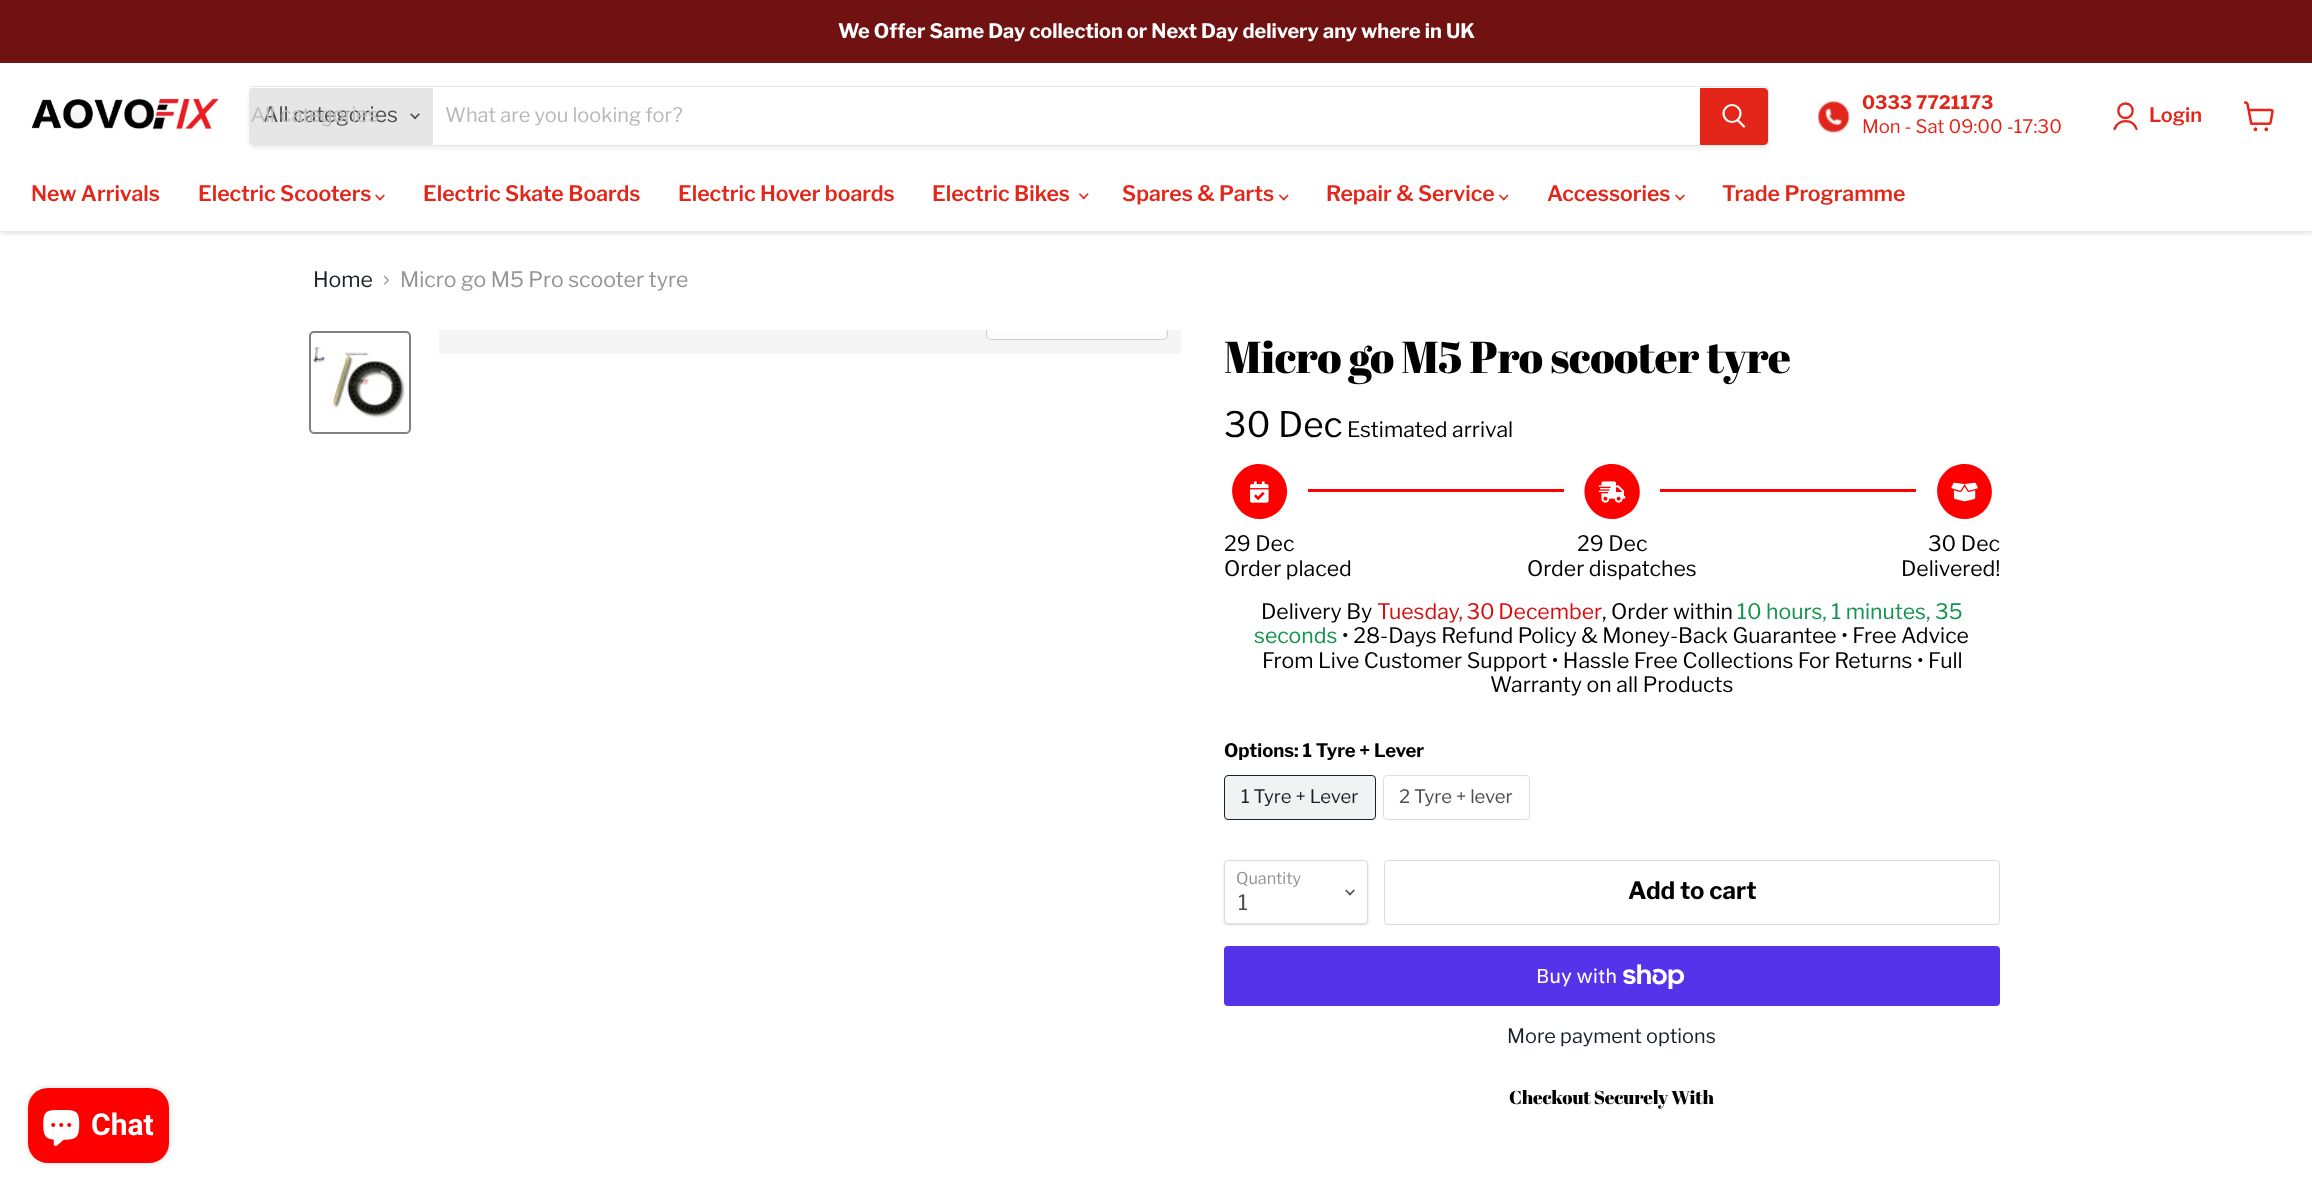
(async () => {
const canvas = document.querySelector("canvas")
canvas.width = 2312
canvas.height = 1188
const c = canvas.getContext("2d")
c.miterLimit = 4
c.fontKerning = "normal"
function T(s,x,y){c.fillText(s,x,y)}
function R(x,y,w,h){c.fillRect(x,y,w,h)}
function Q(x,y,w,h,r){c.beginPath();c.roundRect(x,y,w,h,r);c.fill()}
async function I(src,x,y,w,h){const img=new Image();img.src=src;await img.decode();c.drawImage(img,x,y,w,h)}
let path
c.fillStyle="#fff"
R(0,0,2312,1188)
c.fillStyle="#701212"
R(0,0,2312,63)
c.font="bold 19.9px Libre Franklin"
c.fillStyle="#fff"
T("We Offer Same Day collection or Next Day delivery any where in UK",838,38)
c.fillStyle="#80808040"
c.filter="blur(2.5px)"
c.beginPath()
c.rect(0,64,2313,169)
c.fill()
c.filter="none"
c.fillStyle="#fff"
R(0,63,2312,168)
await I("1.png",31,98,188,32)
c.save()
path = new Path2D("M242 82h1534v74h-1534zm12 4h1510c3 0 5 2 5 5v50c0 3-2 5-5 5h-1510c-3 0-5-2-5-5v-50c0-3 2-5 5-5z")
c.clip(path,"evenodd")
c.fillStyle="#8080801c"
c.filter="blur(2px)"
c.beginPath()
c.roundRect(249,89,1520,60,5)
c.fill()
c.filter="none"
c.restore()
c.beginPath()
c.roundRect(249.5,86.5,1519,59,4.5)
c.strokeStyle="#80808033"
c.stroke()
c.fillStyle="#e6e6e6"
c.beginPath()
c.roundRect(250,88,183,57,[4,0,0,4])
c.fill()
c.font="21.25px Libre Franklin"
c.fillStyle="#4d4d4d"
T("All categories",263,122)
c.font="21.25px Liberation Sans"
c.fillStyle="#bebebe"
T("All categories",251,122)
await I("2.png",410,113,10,7)
c.font="20px Libre Franklin"
c.fillStyle="#b8b8b8"
T("What are you looking for?",445,122)
c.fillStyle="#e32619"
c.beginPath()
c.roundRect(1700.5,88.5,67,56,[0,3.5,3.5,0])
c.fill()
c.strokeStyle="#e32619"
c.stroke()
path = new Path2D("M1744 126.5l-6-6")
c.strokeStyle="#fff"
c.lineWidth=2.2
c.lineCap="round"
c.stroke(path)
c.beginPath()
c.arc(1732,113.5,8.5,0,7)
c.stroke()
await I("3.png",1817,98,33,36)
c.font="bold 18.5px Libre Franklin"
T("0333 7721173",1862,109)
c.font="18.5px Libre Franklin"
T("Mon - Sat 09:00 -17:30",1862,133)
path = new Path2D("M2125.5 118c9.5 0 9.5-14.5 0-14.5c-9.5 0-9.5 14.5 0 14.5zm11 11c-3.5-10.5-18-10.5-22 0")
c.strokeStyle="#e32619"
c.lineWidth=2.3
c.lineJoin="round"
c.stroke(path)
c.font="600 19.9px Libre Franklin"
T("Login",2149,122)
await I("4.png",2244,101,30,30)
c.font="600 21.25px Libre Franklin"
T("New Arrivals",31,201)
T("Electric Scooters",198,201)
await I("5.png",375,194,10,7)
T("Electric Skate Boards",423,201)
T("Electric Hover boards",678,201)
T("Electric Bikes",932,201)
await I("6.png",1079,193,10,7)
T("Spares & Parts",1122,201)
await I("7.png",1279,194,10,7)
T("Repair & Service",1326,201)
await I("7.png",1499,194,10,7)
T("Accessories",1547,201)
await I("5.png",1675,194,10,7)
T("Trade Programme",1722,201)
c.font="21.25px Libre Franklin"
c.fillStyle="#171f2b"
T("Home",313,287)
await I("8.png",383,275,6,10)
c.fillStyle="#949494"
T("Micro go M5 Pro scooter tyre",400,287)
c.beginPath()
c.roundRect(310,332,100,101,4)
c.strokeStyle="#818181"
c.lineWidth=2
c.lineJoin="miter"
c.stroke()
await I("9.png",313,346,92,72)
c.fillStyle="#f5f5f5"
R(439,330,742,24)
c.save()
c.beginPath()
c.rect(439,330,742,24)
c.clip()
c.beginPath()
c.roundRect(986.5,300.5,181,39,4.5)
c.strokeStyle="#d0d0d0"
c.lineWidth=1
c.stroke()
c.restore()
c.fillStyle="#fefefe"
c.beginPath()
c.roundRect(988,330,178,9,[0,0,4,4])
c.fill()
c.letterSpacing="-0.45px"
c.font="44.6px Abril Fatface"
c.fillStyle="#000"
T("Micro go M5 Pro scooter tyre",1224,373)
c.letterSpacing="0px"
c.font="35px Libre Franklin"
T("30 Dec",1224,437)
c.font="21.25px Libre Franklin"
T("Estimated arrival",1347,437)
c.fillStyle="#f00"
path = new Path2D("M1240 472c18-18 49-3 47 22c-1 6-3 12-8 17c-4 4-10 7-17 8c-25 2-40-29-22-47z")
c.fill(path)
await I("10.png",1250,481,19,22)
R(1308,489,256,3)
c.fillStyle="#000"
T("29 Dec",1224,551)
T("Order placed",1224,576)
c.fillStyle="#f00"
path = new Path2D("M1593 472c4-5 10-7 16-8c26-2 41 28 23 47c-5 4-11 7-17 8c-26 2-41-29-22-47z")
c.fill(path)
await I("11.png",1598,481,28,22)
R(1660,489,256,3)
c.fillStyle="#000"
T("29 Dec",1577,551)
T("Order dispatches",1527,576)
c.fillStyle="#f00"
path = new Path2D("M1945 472c5-5 10-7 17-8c25-2 40 28 22 47c-4 4-10 7-17 8c-25 2-40-29-22-47z")
c.fill(path)
await I("12.png",1951,482,27,20)
c.fillStyle="#000"
T("30 Dec",1928,551)
T("Delivered!",1901,576)
T("Delivery By",1261,619)
c.wordSpacing="-1px"
c.fillStyle="#d90d0d"
T("Tuesday, 30 December",1377,619)
c.wordSpacing="0px"
c.fillStyle="#000"
T(", Order within",1602,619)
c.fillStyle="#12944c"
T("10 hours, 1 minutes, 35",1737,619)
T("seconds",1254,643)
c.fillStyle="#000"
T("• 28-Days Refund Policy & Money-Back Guarantee • Free Advice",1342,643)
T("From Live Customer Support • Hassle Free Collections For Returns • Full",1262,668)
T("Warranty on all Products",1490,692)
c.font="bold 18.5px Libre Franklin"
T("Options: 1 Tyre + Lever",1224,757)
c.fillStyle="#f1f2f2"
c.beginPath()
c.roundRect(1224.5,775.5,151,44,3.5)
c.fill()
c.strokeStyle="#171f2b"
c.lineWidth=1
c.stroke()
c.font="18.5px Libre Franklin"
c.fillStyle="#171f2b"
T("1 Tyre + Lever",1241,803)
c.beginPath()
c.roundRect(1383.5,775.5,146,44,3.5)
c.strokeStyle="#ddd"
c.stroke()
c.fillStyle="#4d4d4d"
T("2 Tyre + lever",1399,803)
c.fillStyle="#00000026"
c.filter="blur(1px)"
c.beginPath()
c.roundRect(1224,861,144,64,4)
c.fill()
c.filter="none"
c.fillStyle="#fff"
c.beginPath()
c.roundRect(1224.5,860.5,143,63,3.5)
c.fill()
c.stroke()
c.font="16.25px Libre Franklin"
c.fillStyle="#949494"
T("Quantity",1236,884)
await I("13.png",1345,889,10,7)
c.font="21.25px Libre Franklin"
c.fillStyle="#4d4d4d"
T("1",1238,910)
c.beginPath()
c.roundRect(1384.5,860.5,615,64,3.5)
c.stroke()
c.font="bold 24px Libre Franklin"
c.fillStyle="#000"
T("Add to cart",1628,899)
c.fillStyle="#5433eb"
Q(1224,946,776,60,4)
c.font="20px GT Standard"
c.fillStyle="#fff"
T("Buy with",1536,983)
await I("14.png",1623,964,62,25)
c.font="19.9px Libre Franklin"
c.fillStyle="#171f2b"
T("More payment options",1507,1043)
c.letterSpacing="-0.2px"
c.font="18.75px Abril Fatface"
c.fillStyle="#000"
T("Checkout Securely With",1509,1104)
c.fillStyle="#00000026"
c.filter="blur(3px)"
c.beginPath()
c.roundRect(28,1088,141,75,20)
c.fill()
c.filter="none"
c.fillStyle="#f00"
Q(28,1088,141,75,20)
await I("15.png",43,1110,37,36)
c.letterSpacing="0px"
c.font="bold 30px Roboto"
c.fillStyle="#fff"
T("Chat",91,1135)
})()
